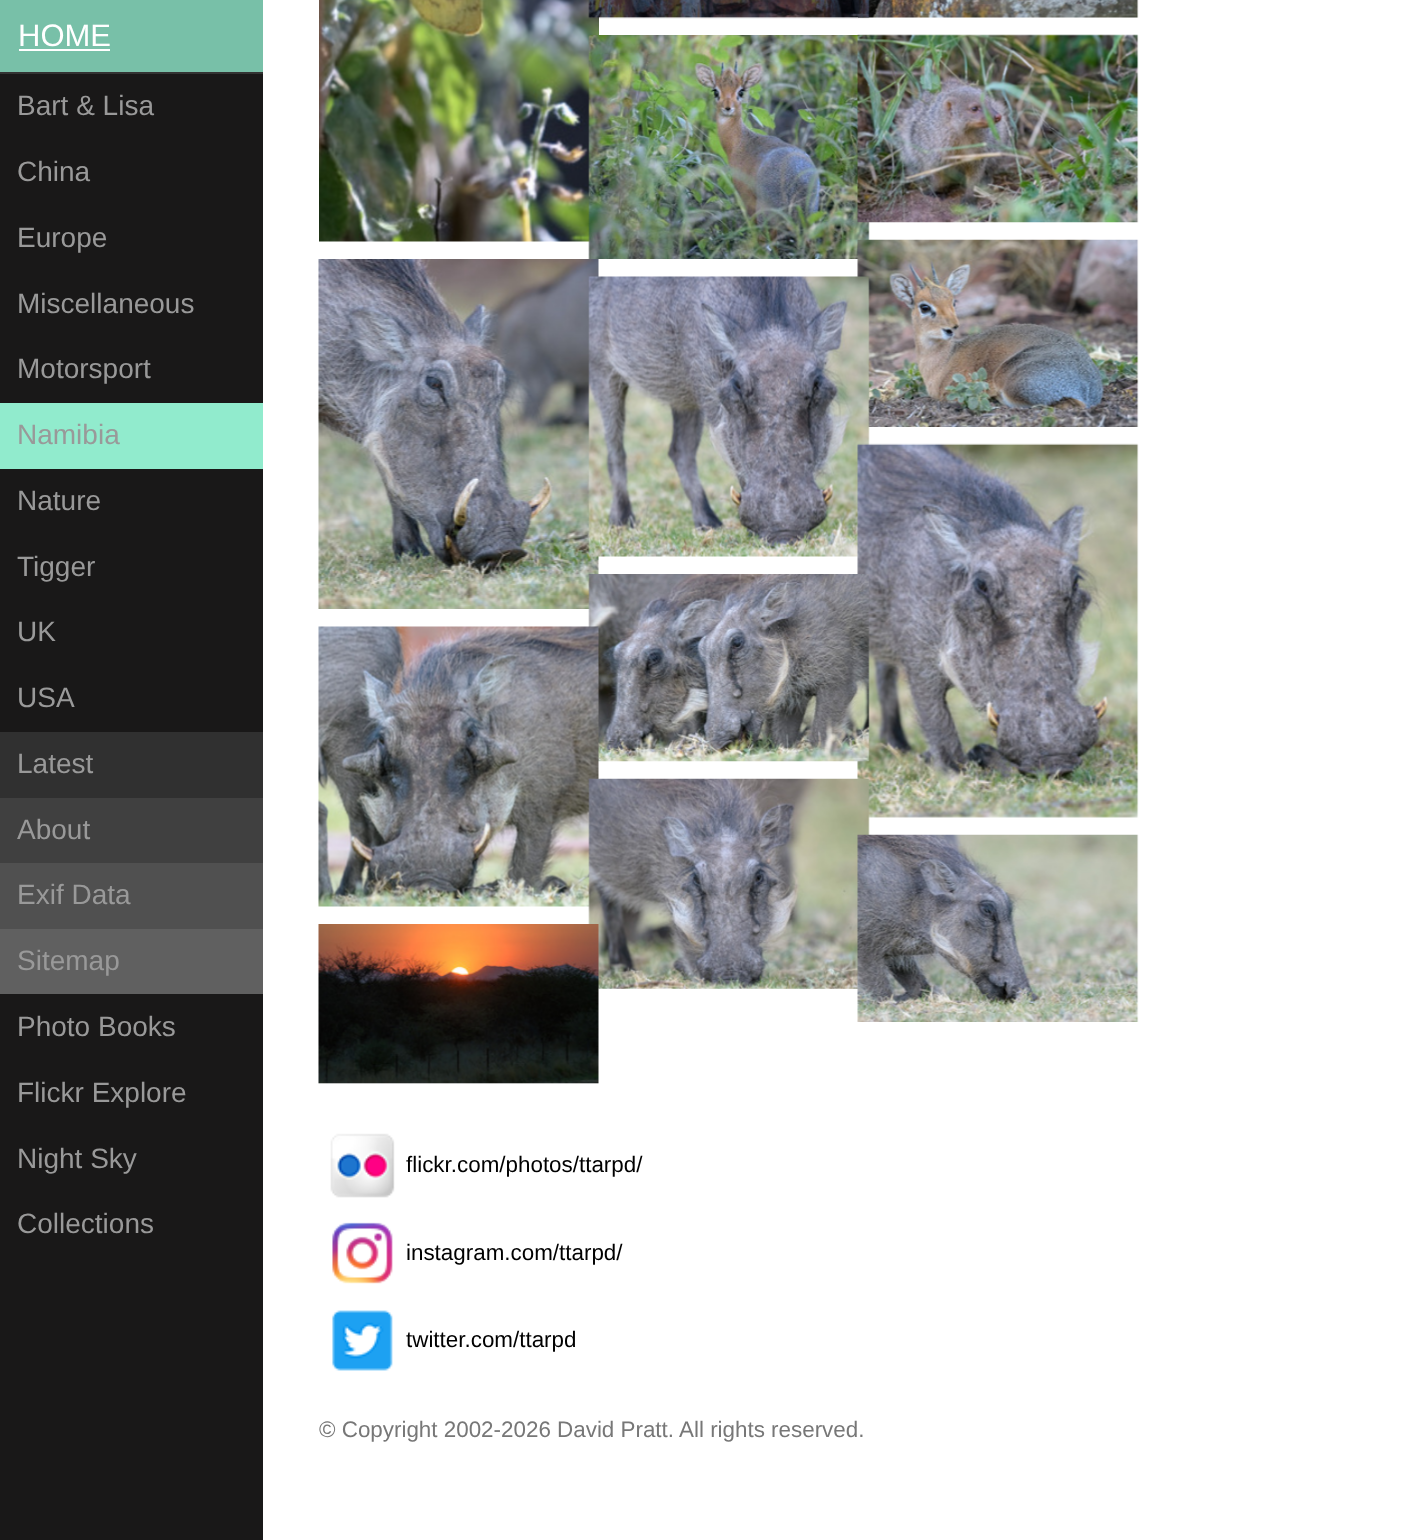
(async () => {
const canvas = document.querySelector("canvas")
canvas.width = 1424
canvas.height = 1540
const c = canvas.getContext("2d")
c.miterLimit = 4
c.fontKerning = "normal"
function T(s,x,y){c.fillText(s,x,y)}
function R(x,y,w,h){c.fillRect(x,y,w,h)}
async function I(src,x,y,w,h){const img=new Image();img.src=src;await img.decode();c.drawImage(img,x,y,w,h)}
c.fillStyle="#fff"
R(0,0,1424,1540)
c.fillStyle="#191818"
R(0,74,263,1466)
c.fillStyle="#78c0a8"
R(0,0,263,72)
c.font="31px Liberation Sans"
c.fillStyle="#fff"
T("HOME",18,46)
R(19,49,91,2)
c.fillStyle="#333"
R(0,72,263,2)
c.font="28px Liberation Sans"
c.fillStyle="#999"
T("Bart & Lisa",17,115)
T("China",17,181)
T("Europe",17,247)
T("Miscellaneous",17,313)
T("Motorsport",17,378)
c.fillStyle="#91ebcd"
R(0,403,263,66)
c.fillStyle="#999"
T("Namibia",17,444)
T("Nature",17,510)
T("Tigger",17,576)
T("UK",17,641)
T("USA",17,707)
c.fillStyle="#303030"
R(0,732,263,66)
c.fillStyle="#999"
T("Latest",17,773)
c.fillStyle="#404040"
R(0,798,263,65)
c.fillStyle="#999"
T("About",17,839)
c.fillStyle="#505050"
R(0,863,263,66)
c.fillStyle="#999"
T("Exif Data",17,904)
c.fillStyle="#606060"
R(0,929,263,65)
c.fillStyle="#999"
T("Sitemap",17,970)
T("Photo Books",17,1036)
T("Flickr Explore",17,1102)
T("Night Sky",17,1168)
T("Collections",17,1233)
await I("1.png",319,0,280,242)
await I("3.png",858,0,281,18)
await I("2.png",588,0,282,19)
await I("4.png",588,35,282,224)
await I("5.png",857,34,282,189)
await I("6.png",318,259,281,350)
await I("8.png",857,239,282,188)
await I("7.png",588,276,282,281)
await I("11.png",857,443,282,375)
await I("10.png",588,574,282,188)
await I("9.png",318,626,281,281)
await I("13.png",588,778,282,211)
await I("12.png",318,924,281,160)
await I("14.png",857,834,282,188)
await I("15.png",330,1133,65,65)
c.font="22.4px Liberation Sans"
c.fillStyle="#000"
T("flickr.com/photos/ttarpd/",406,1172)
await I("16.png",332,1222,61,62)
T("instagram.com/ttarpd/",406,1260)
await I("17.png",332,1310,61,61)
T("twitter.com/ttarpd",406,1347)
c.fillStyle="#777"
T("© Copyright 2002-2026 David Pratt. All rights reserved.",319,1437)
})()
